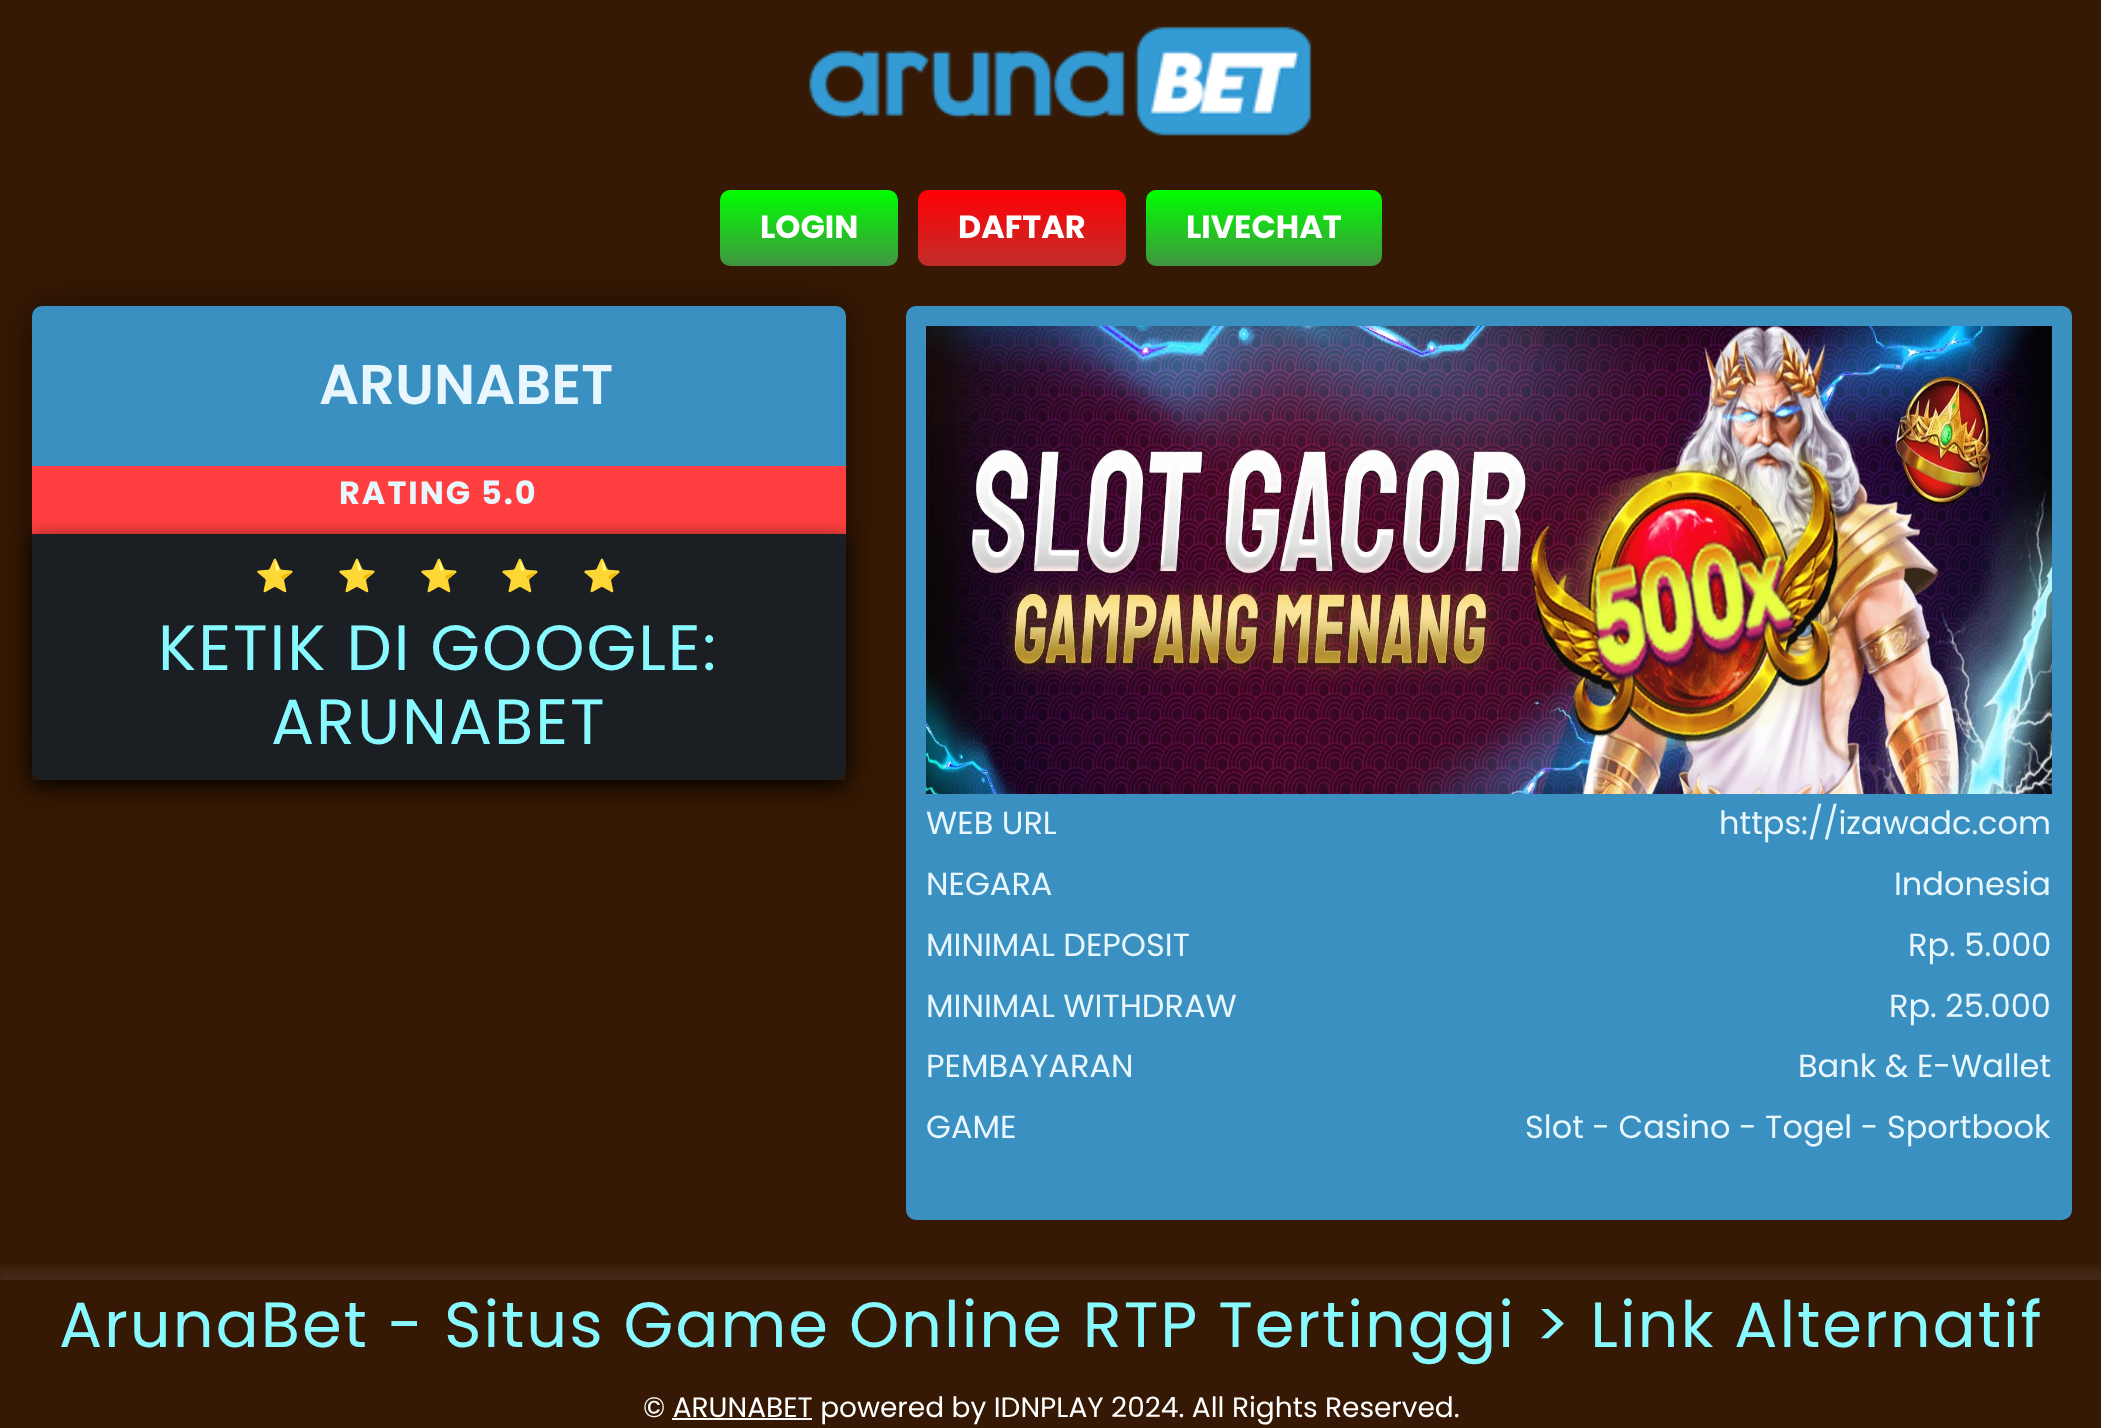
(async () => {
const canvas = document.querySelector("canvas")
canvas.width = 2101
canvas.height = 1428
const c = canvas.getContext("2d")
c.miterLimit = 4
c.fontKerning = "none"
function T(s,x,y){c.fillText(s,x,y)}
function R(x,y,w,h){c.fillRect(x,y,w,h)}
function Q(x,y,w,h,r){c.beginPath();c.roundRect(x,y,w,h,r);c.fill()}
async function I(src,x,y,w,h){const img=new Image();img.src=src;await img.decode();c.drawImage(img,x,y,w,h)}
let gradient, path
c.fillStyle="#361904"
R(0,0,2101,1428)
await I("1.png",809,26,503,110)
gradient = c.createLinearGradient(809,190,809,266)
gradient.addColorStop(0,"#0f0")
gradient.addColorStop(1,"#419641")
c.fillStyle = gradient
Q(720,190,178,76,10)
c.font="bold 32px Poppins"
c.fillStyle="#fff"
T("LOGIN",760,238)
gradient = c.createLinearGradient(1022,190,1022,266)
gradient.addColorStop(0,"#ff0005")
gradient.addColorStop(1,"#c12e2a")
c.fillStyle = gradient
Q(918,190,208,76,10)
c.fillStyle="#fff"
T("DAFTAR",958,238)
gradient = c.createLinearGradient(1264,190,1264,266)
gradient.addColorStop(0,"#0f0")
gradient.addColorStop(1,"#419641")
c.fillStyle = gradient
Q(1146,190,236,76,10)
c.fillStyle="#fff"
T("LIVECHAT",1186,238)
c.save()
path = new Path2D("M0 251h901v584h-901zm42 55h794c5.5 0 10 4.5 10 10v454c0 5.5-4.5 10-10 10h-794c-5.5 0-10-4.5-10-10v-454c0-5.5 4.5-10 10-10z")
c.clip(path,"evenodd")
c.fillStyle="#00000080"
c.filter="blur(18px)"
c.beginPath()
c.roundRect(32,306,814,474,10)
c.fill()
c.filter="none"
c.restore()
c.fillStyle="#04224285"
Q(32,306,814,474,10)
c.fillStyle="#3a91c1"
c.beginPath()
c.roundRect(32,306,814,160,[10,10,0,0])
c.fill()
c.font="600 56px Poppins"
c.fillStyle="#e8f6fd"
T("ARUNABET",319,404)
c.fillStyle="#ff3f3f"
R(32,466,814,68)
c.letterSpacing="2px"
c.font="bold 32px Poppins"
c.fillStyle="#e8f6fd"
T("RATING 5.0",339,504)
c.save()
path = new Path2D("M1 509h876v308h-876zm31 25h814v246h-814z")
c.clip(path,"evenodd")
c.fillStyle="#000000cc"
c.filter="blur(10px)"
c.beginPath()
c.rect(32,540,814,246)
c.fill()
c.filter="none"
c.restore()
c.letterSpacing="0px"
c.font="32px Noto Color Emoji"
c.fillStyle="#000"
T("⭐",255,587)
T("⭐",337,587)
T("⭐",419,587)
T("⭐",500,587)
T("⭐",582,587)
c.letterSpacing="1.92px"
c.font="64px Poppins"
c.fillStyle="#88f9ff"
T("KETIK DI GOOGLE:",158,670)
T("ARUNABET",271,744)
c.fillStyle="#3a91c1"
Q(906,306,1166,914,10)
await I("2.png",926,326,1126,468)
c.letterSpacing="0px"
c.font="32px Poppins"
c.fillStyle="#e8f6fd"
T("WEB URL",926,834)
T("https://izawadc.com",1719,834)
T("NEGARA",926,895)
T("Indonesia",1894,895)
T("MINIMAL DEPOSIT",926,956)
T("Rp. 5.000",1908,956)
T("MINIMAL WITHDRAW",926,1017)
T("Rp. 25.000",1889,1017)
T("PEMBAYARAN",926,1077)
T("Bank & E-Wallet",1798,1077)
T("GAME",926,1138)
T("Slot - Casino - Togel - Sportbook",1525,1138)
c.save()
c.beginPath()
c.rect(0,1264,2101,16)
c.clip()
c.fillStyle="#b0b0b01a"
c.filter="blur(5px)"
c.beginPath()
c.rect(-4,1268,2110,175)
c.fill()
c.filter="none"
c.restore()
c.letterSpacing="1.92px"
c.font="64px Poppins"
c.fillStyle="#88f9ff"
T("ArunaBet - Situs Game Online RTP Tertinggi > Link Alternatif",59,1347)
c.letterSpacing="0px"
c.font="28px Poppins"
c.fillStyle="#fff"
T("© ARUNABET powered by IDNPLAY 2024. All Rights Reserved.",643,1417)
R(672,1418,140,2)
})()
